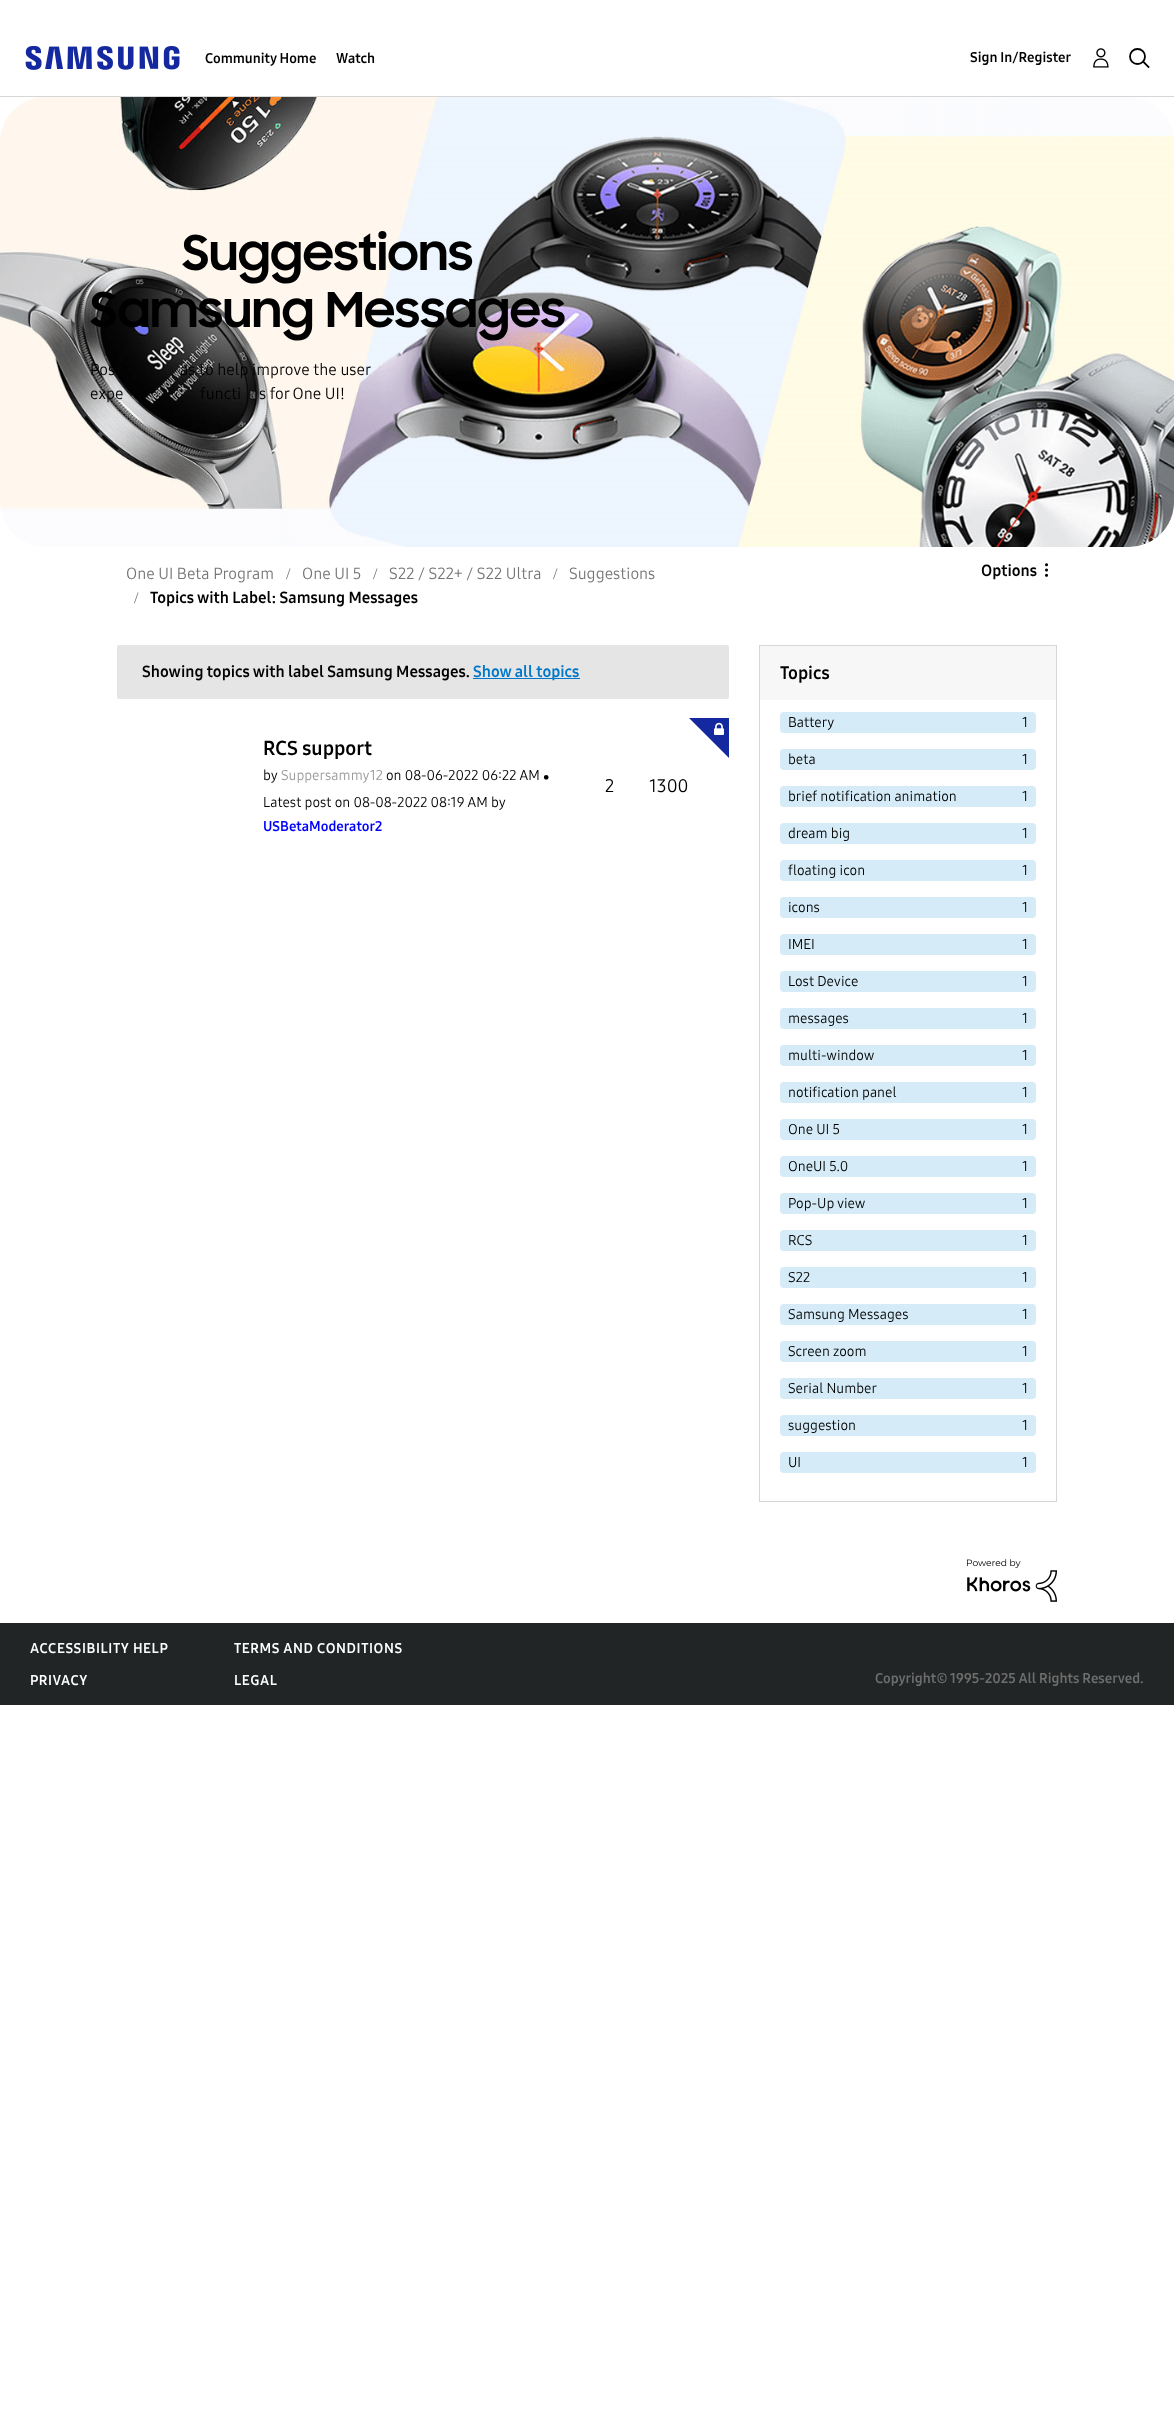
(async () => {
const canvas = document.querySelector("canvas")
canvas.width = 1174
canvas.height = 2421
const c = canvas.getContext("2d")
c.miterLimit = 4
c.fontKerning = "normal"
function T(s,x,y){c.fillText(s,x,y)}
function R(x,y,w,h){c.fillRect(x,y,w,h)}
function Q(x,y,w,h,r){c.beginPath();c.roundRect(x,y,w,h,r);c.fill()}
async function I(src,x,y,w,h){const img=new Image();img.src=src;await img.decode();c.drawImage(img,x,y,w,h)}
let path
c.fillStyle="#fff"
R(0,0,1174,2421)
c.fillStyle="#d6d6d6"
R(0,96,1174,1)
await I("1.png",25,46,155,24)
c.font="bold 14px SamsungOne"
c.fillStyle="#000"
T("Community Home",205,63)
T("Watch",336,63)
T("Sign In/Register",970,62)
await I("2.png",1093,48,16,20)
c.beginPath()
c.arc(1137.5,56.5,7.5,0,7)
c.strokeStyle="#000"
c.lineWidth=1.8
c.stroke()
path = new Path2D("M1144 62.5l4.5 4.5")
c.lineCap="square"
c.stroke(path)
await I("3.png",0,97,1174,450)
c.font="bold 48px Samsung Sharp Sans"
T("Suggestions",182,270)
T("Samsung Messages",90,327)
c.font="16px SamsungOne"
T("Pos",90,375)
T("as to help improve the user",180,375)
T("expe",90,399)
T("functi",200,399)
T("s for One UI!",259,399)
c.fillStyle="#767676"
T("One UI Beta Program",126,579)
c.font="16px Liberation Serif"
T("/",286,579)
c.font="16px SamsungOne"
T("One UI 5",302,579)
c.font="16px Liberation Serif"
T("/",373,579)
c.font="16px SamsungOne"
T("S22 / S22+ / S22 Ultra",389,579)
c.font="16px Liberation Serif"
T("/",553,579)
c.font="16px SamsungOne"
T("Suggestions",569,579)
c.font="16px Liberation Serif"
T("/",134,603)
c.font="bold 16px SamsungOne"
c.fillStyle="#000"
T("Topics with Label: Samsung Messages",150,603)
T("Options",981,576)
await I("4.png",1045,563,3,14)
c.fillStyle="#e5e5e5"
Q(117,645,612,54,2)
c.fillStyle="#000"
T("Showing topics with label Samsung Messages.",142,677)
c.fillStyle="#0077c8"
R(473,678,107,1)
T("Show all topics",473,677)
c.font="bold 20px SamsungOne"
c.fillStyle="#000"
T("RCS support",263,755)
c.font="14px SamsungOne"
T("by",263,780)
c.fillStyle="#999"
T("Suppersammy12",281,780)
c.fillStyle="#000"
T("on 08-06-2022 06:22 AM",386,780)
T("•",543,782)
T("Latest post on 08-08-2022 08:19 AM by",263,807)
c.font="bold 14px SamsungOne"
c.fillStyle="#00f"
T("USBetaModerator2",263,831)
c.font="18px SamsungOne"
c.fillStyle="#000"
T("2",605,792)
T("1300",649,792)
c.fillStyle="#1428a0"
path = new Path2D("M689 718h40v40z")
c.fill(path)
await I("5.png",714,722,10,13)
c.strokeStyle="#d6d6d6"
c.lineWidth=1
c.strokeRect(759.5,645.5,297,856)
c.fillStyle="#f7f7f7"
c.beginPath()
c.roundRect(760,646,296,54,[2,2,0,0])
c.fill()
c.font="bold 18px SamsungOne"
c.fillStyle="#000"
T("Topics",780,679)
c.fillStyle="#d5ecf8"
c.beginPath()
c.roundRect(986,712,50,21,[0,4,4,0])
c.fill()
c.beginPath()
c.roundRect(780,712,207,21,[4,0,0,4])
c.fill()
c.font="14px SamsungOne"
c.fillStyle="#000"
T("Battery",788,727)
T("1",1022,727)
c.fillStyle="#d5ecf8"
c.beginPath()
c.roundRect(986,749,50,21,[0,4,4,0])
c.fill()
c.beginPath()
c.roundRect(780,749,207,21,[4,0,0,4])
c.fill()
c.fillStyle="#000"
T("beta",788,764)
T("1",1022,764)
c.fillStyle="#d5ecf8"
c.beginPath()
c.roundRect(986,786,50,21,[0,4,4,0])
c.fill()
c.beginPath()
c.roundRect(780,786,207,21,[4,0,0,4])
c.fill()
c.fillStyle="#000"
T("brief notification animation",788,801)
T("1",1022,801)
c.fillStyle="#d5ecf8"
c.beginPath()
c.roundRect(986,823,50,21,[0,4,4,0])
c.fill()
c.beginPath()
c.roundRect(780,823,207,21,[4,0,0,4])
c.fill()
c.fillStyle="#000"
T("dream big",788,838)
T("1",1022,838)
c.fillStyle="#d5ecf8"
c.beginPath()
c.roundRect(986,860,50,21,[0,4,4,0])
c.fill()
c.beginPath()
c.roundRect(780,860,207,21,[4,0,0,4])
c.fill()
c.fillStyle="#000"
T("floating icon",788,875)
T("1",1022,875)
c.fillStyle="#d5ecf8"
c.beginPath()
c.roundRect(986,897,50,21,[0,4,4,0])
c.fill()
c.beginPath()
c.roundRect(780,897,207,21,[4,0,0,4])
c.fill()
c.fillStyle="#000"
T("icons",788,912)
T("1",1022,912)
c.fillStyle="#d5ecf8"
c.beginPath()
c.roundRect(986,934,50,21,[0,4,4,0])
c.fill()
c.beginPath()
c.roundRect(780,934,207,21,[4,0,0,4])
c.fill()
c.fillStyle="#000"
T("IMEI",788,949)
T("1",1022,949)
c.fillStyle="#d5ecf8"
c.beginPath()
c.roundRect(986,971,50,21,[0,4,4,0])
c.fill()
c.beginPath()
c.roundRect(780,971,207,21,[4,0,0,4])
c.fill()
c.fillStyle="#000"
T("Lost Device",788,986)
T("1",1022,986)
c.fillStyle="#d5ecf8"
c.beginPath()
c.roundRect(986,1008,50,21,[0,4,4,0])
c.fill()
c.beginPath()
c.roundRect(780,1008,207,21,[4,0,0,4])
c.fill()
c.fillStyle="#000"
T("messages",788,1023)
T("1",1022,1023)
c.fillStyle="#d5ecf8"
c.beginPath()
c.roundRect(986,1045,50,21,[0,4,4,0])
c.fill()
c.beginPath()
c.roundRect(780,1045,207,21,[4,0,0,4])
c.fill()
c.fillStyle="#000"
T("multi-window",788,1060)
T("1",1022,1060)
c.fillStyle="#d5ecf8"
c.beginPath()
c.roundRect(986,1082,50,21,[0,4,4,0])
c.fill()
c.beginPath()
c.roundRect(780,1082,207,21,[4,0,0,4])
c.fill()
c.fillStyle="#000"
T("notification panel",788,1097)
T("1",1022,1097)
c.fillStyle="#d5ecf8"
c.beginPath()
c.roundRect(986,1119,50,21,[0,4,4,0])
c.fill()
c.beginPath()
c.roundRect(780,1119,207,21,[4,0,0,4])
c.fill()
c.fillStyle="#000"
T("One UI 5",788,1134)
T("1",1022,1134)
c.fillStyle="#d5ecf8"
c.beginPath()
c.roundRect(986,1156,50,21,[0,4,4,0])
c.fill()
c.beginPath()
c.roundRect(780,1156,207,21,[4,0,0,4])
c.fill()
c.fillStyle="#000"
T("OneUI 5.0",788,1171)
T("1",1022,1171)
c.fillStyle="#d5ecf8"
c.beginPath()
c.roundRect(986,1193,50,21,[0,4,4,0])
c.fill()
c.beginPath()
c.roundRect(780,1193,207,21,[4,0,0,4])
c.fill()
c.fillStyle="#000"
T("Pop-Up view",788,1208)
T("1",1022,1208)
c.fillStyle="#d5ecf8"
c.beginPath()
c.roundRect(986,1230,50,21,[0,4,4,0])
c.fill()
c.beginPath()
c.roundRect(780,1230,207,21,[4,0,0,4])
c.fill()
c.fillStyle="#000"
T("RCS",788,1245)
T("1",1022,1245)
c.fillStyle="#d5ecf8"
c.beginPath()
c.roundRect(986,1267,50,21,[0,4,4,0])
c.fill()
c.beginPath()
c.roundRect(780,1267,207,21,[4,0,0,4])
c.fill()
c.fillStyle="#000"
T("S22",788,1282)
T("1",1022,1282)
c.fillStyle="#d5ecf8"
c.beginPath()
c.roundRect(986,1304,50,21,[0,4,4,0])
c.fill()
c.beginPath()
c.roundRect(780,1304,207,21,[4,0,0,4])
c.fill()
c.fillStyle="#000"
T("Samsung Messages",788,1319)
T("1",1022,1319)
c.fillStyle="#d5ecf8"
c.beginPath()
c.roundRect(986,1341,50,21,[0,4,4,0])
c.fill()
c.beginPath()
c.roundRect(780,1341,207,21,[4,0,0,4])
c.fill()
c.fillStyle="#000"
T("Screen zoom",788,1356)
T("1",1022,1356)
c.fillStyle="#d5ecf8"
c.beginPath()
c.roundRect(986,1378,50,21,[0,4,4,0])
c.fill()
c.beginPath()
c.roundRect(780,1378,207,21,[4,0,0,4])
c.fill()
c.fillStyle="#000"
T("Serial Number",788,1393)
T("1",1022,1393)
c.fillStyle="#d5ecf8"
c.beginPath()
c.roundRect(986,1415,50,21,[0,4,4,0])
c.fill()
c.beginPath()
c.roundRect(780,1415,207,21,[4,0,0,4])
c.fill()
c.fillStyle="#000"
T("suggestion",788,1430)
T("1",1022,1430)
c.fillStyle="#d5ecf8"
c.beginPath()
c.roundRect(986,1452,50,21,[0,4,4,0])
c.fill()
c.beginPath()
c.roundRect(780,1452,207,21,[4,0,0,4])
c.fill()
c.fillStyle="#000"
T("UI",788,1467)
T("1",1022,1467)
await I("6.png",967,1559,90,43)
c.fillStyle="#222525"
R(0,1623,1174,82)
c.letterSpacing="0.6px"
c.font="bold 14px SamsungOne"
c.fillStyle="#fff"
T("ACCESSIBILITY HELP",30,1653)
T("TERMS AND CONDITIONS",234,1653)
T("PRIVACY",30,1685)
T("LEGAL",234,1685)
c.letterSpacing="0px"
c.fillStyle="#6e6e6e"
T("Copyright© 1995-2025 All Rights Reserved.",875,1683)
})()
